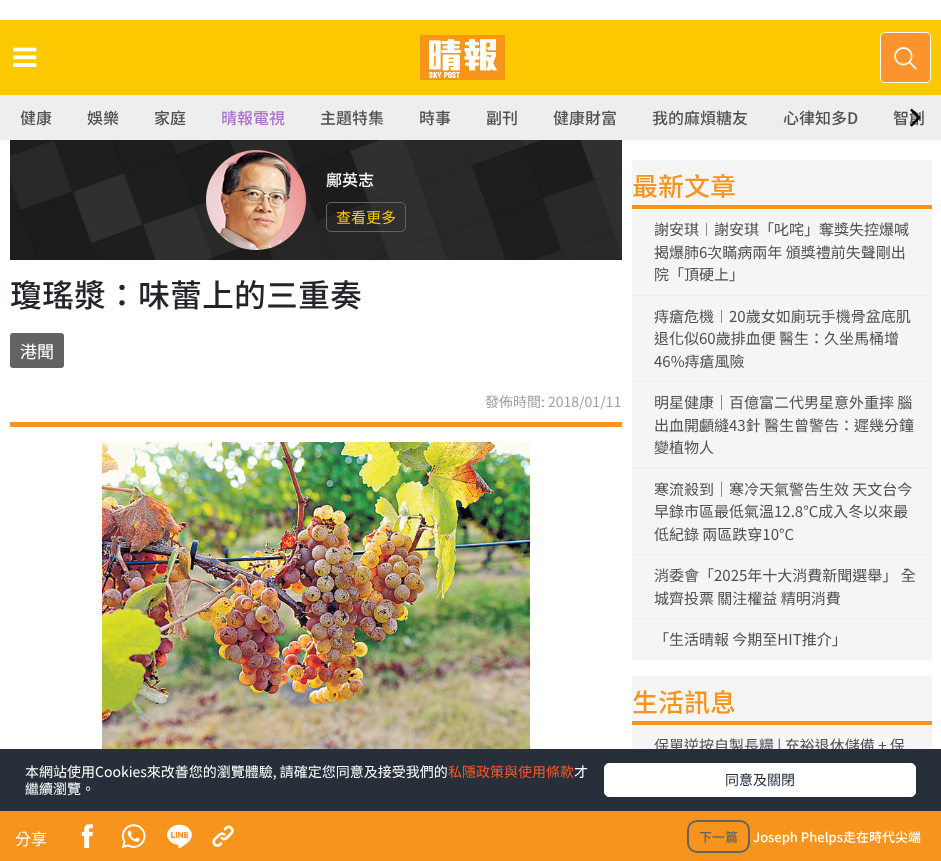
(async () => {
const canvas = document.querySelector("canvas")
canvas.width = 941
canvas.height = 861
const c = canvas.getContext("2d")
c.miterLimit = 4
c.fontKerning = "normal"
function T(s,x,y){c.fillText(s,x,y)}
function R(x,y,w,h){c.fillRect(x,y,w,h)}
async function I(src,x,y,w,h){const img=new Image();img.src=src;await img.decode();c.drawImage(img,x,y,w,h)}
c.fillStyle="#fff"
R(0,0,941,861)
c.fillStyle="#fcc800"
R(0,20,941,75)
await I("1.png",13,47,24,20)
await I("2.png",420,35,85,45)
c.fillStyle="#fc942e"
c.beginPath()
c.roundRect(880.5,32.5,50,50,4.5)
c.fill()
c.strokeStyle="#fff"
c.stroke()
await I("3.png",894,47,23,23)
c.fillStyle="#eee"
R(0,95,941,45)
c.font="500 16px Noto Sans TC"
c.fillStyle="#505050"
T("智創",893,124)
await I("4.png",910,108,11,19)
T("健康",20,124)
T("娛樂",87,124)
T("家庭",154,124)
c.fillStyle="#aa72cc"
T("晴報電視",221,124)
c.fillStyle="#505050"
T("主題特集",320,124)
T("時事",419,124)
T("副刊",486,124)
T("健康財富",553,124)
T("我的麻煩糖友",652,124)
T("心律知多D",783,124)
await I("5.png",10,140,612,120)
await I("6.png",206,150,100,100)
c.fillStyle="#fff"
T("鄺英志",326,186)
c.beginPath()
c.roundRect(326.5,202.5,79,29,4.5)
c.strokeStyle="#636363"
c.stroke()
c.font="100 15px Noto Sans TC"
c.fillStyle="#fcc800"
T("查看更多",336,223)
c.font="500 32px Noto Sans TC"
c.fillStyle="#212529"
T("瓊瑤漿：味蕾上的三重奏",10,307)
c.fillStyle="#636363"
c.beginPath()
c.roundRect(20,333,44,35,[0,3,3,0])
c.fill()
c.font="100 17px Noto Sans TC"
c.fillStyle="#fff"
T("港聞",20,358)
c.fillStyle="#636363"
c.beginPath()
c.roundRect(10,333,10,35,[3,0,0,3])
c.fill()
c.font="100 14px Noto Sans TC"
c.fillStyle="#9e9e9e"
T("發佈時間: 2018/01/11",485,407)
c.fillStyle="#f7941e"
R(10,422,612,5)
await I("7.png",102,442,428,307)
c.fillStyle="#f5f5f5"
R(632,160,300,500)
c.fillStyle="#f7941e"
R(632,205,300,4)
c.font="500 26px Noto Sans TC"
T("最新文章",632,196)
c.fillStyle="#eee"
R(632,295,300,1)
c.font="100 15px Noto Sans TC"
c.fillStyle="#505050"
T("謝安琪︱謝安琪「叱咤」奪獎失控爆喊",654,235)
T("揭爆肺6次瞞病兩年 頒獎禮前失聲剛出",654,258)
T("院「頂硬上」",654,280)
c.fillStyle="#eee"
R(632,381,300,1)
c.fillStyle="#505050"
T("痔瘡危機︱20歲女如廁玩手機骨盆底肌",654,322)
T("退化似60歲排血便 醫生：久坐馬桶增",654,344)
T("46%痔瘡風險",654,367)
c.fillStyle="#eee"
R(632,468,300,1)
c.fillStyle="#505050"
T("明星健康｜百億富二代男星意外重摔 腦",654,408)
T("出血開顱縫43針 醫生曾警告：遲幾分鐘",654,431)
T("變植物人",654,453)
c.fillStyle="#eee"
R(632,554,300,1)
c.fillStyle="#505050"
T("寒流殺到｜寒冷天氣警告生效 天文台今",654,495)
T("早錄市區最低氣溫12.8°C成入冬以來最",654,517)
T("低紀錄 兩區跌穿10°C",654,540)
c.fillStyle="#eee"
R(632,618,300,1)
c.fillStyle="#505050"
T("消委會「2025年十大消費新聞選舉」 全",654,581)
T("城齊投票 關注權益 精明消費",654,604)
T("「生活晴報 今期至HIT推介」",654,645)
c.fillStyle="#f5f5f5"
R(632,676,300,73)
c.fillStyle="#f7941e"
R(632,721,300,4)
c.font="500 26px Noto Sans TC"
T("生活訊息",632,712)
c.font="100 15px Noto Sans TC"
c.fillStyle="#505050"
T("保單逆按自製長糧 | 充裕退休儲備 + 保",654,751)
c.fillStyle="#f7941e"
R(0,811,941,50)
c.font="100 16px Noto Sans TC"
c.fillStyle="#fff"
T("分享",15,845)
await I("8.png",81,824,12,25)
await I("9.png",121,824,25,24)
await I("10.png",167,824,25,25)
await I("11.png",212,825,22,22)
c.beginPath()
c.roundRect(688,821,61,31,9)
c.lineWidth=2
c.stroke()
c.font="500 13px Noto Sans TC"
c.fillStyle="#636363"
T("下一篇",699,842)
c.fillStyle="#fff"
T("Joseph Phelps走在時代尖端",753,842)
c.fillStyle="#262f3a"
R(0,749,941,62)
c.font="100 14px Noto Sans TC"
c.fillStyle="#fff"
T("本網站使用Cookies來改善您的瀏覽體驗, 請確定您同意及接受我們的",25,777)
c.fillStyle="#ff5722"
T("私隱政策與使用條款",448,777)
c.fillStyle="#fff"
T("才",574,777)
T("繼續瀏覽。",25,794)
c.beginPath()
c.roundRect(604.5,763.5,311,33,4.5)
c.fill()
c.strokeStyle="#fff"
c.lineWidth=1
c.stroke()
c.fillStyle="#262f3a"
T("同意及關閉",725,785)
})()
